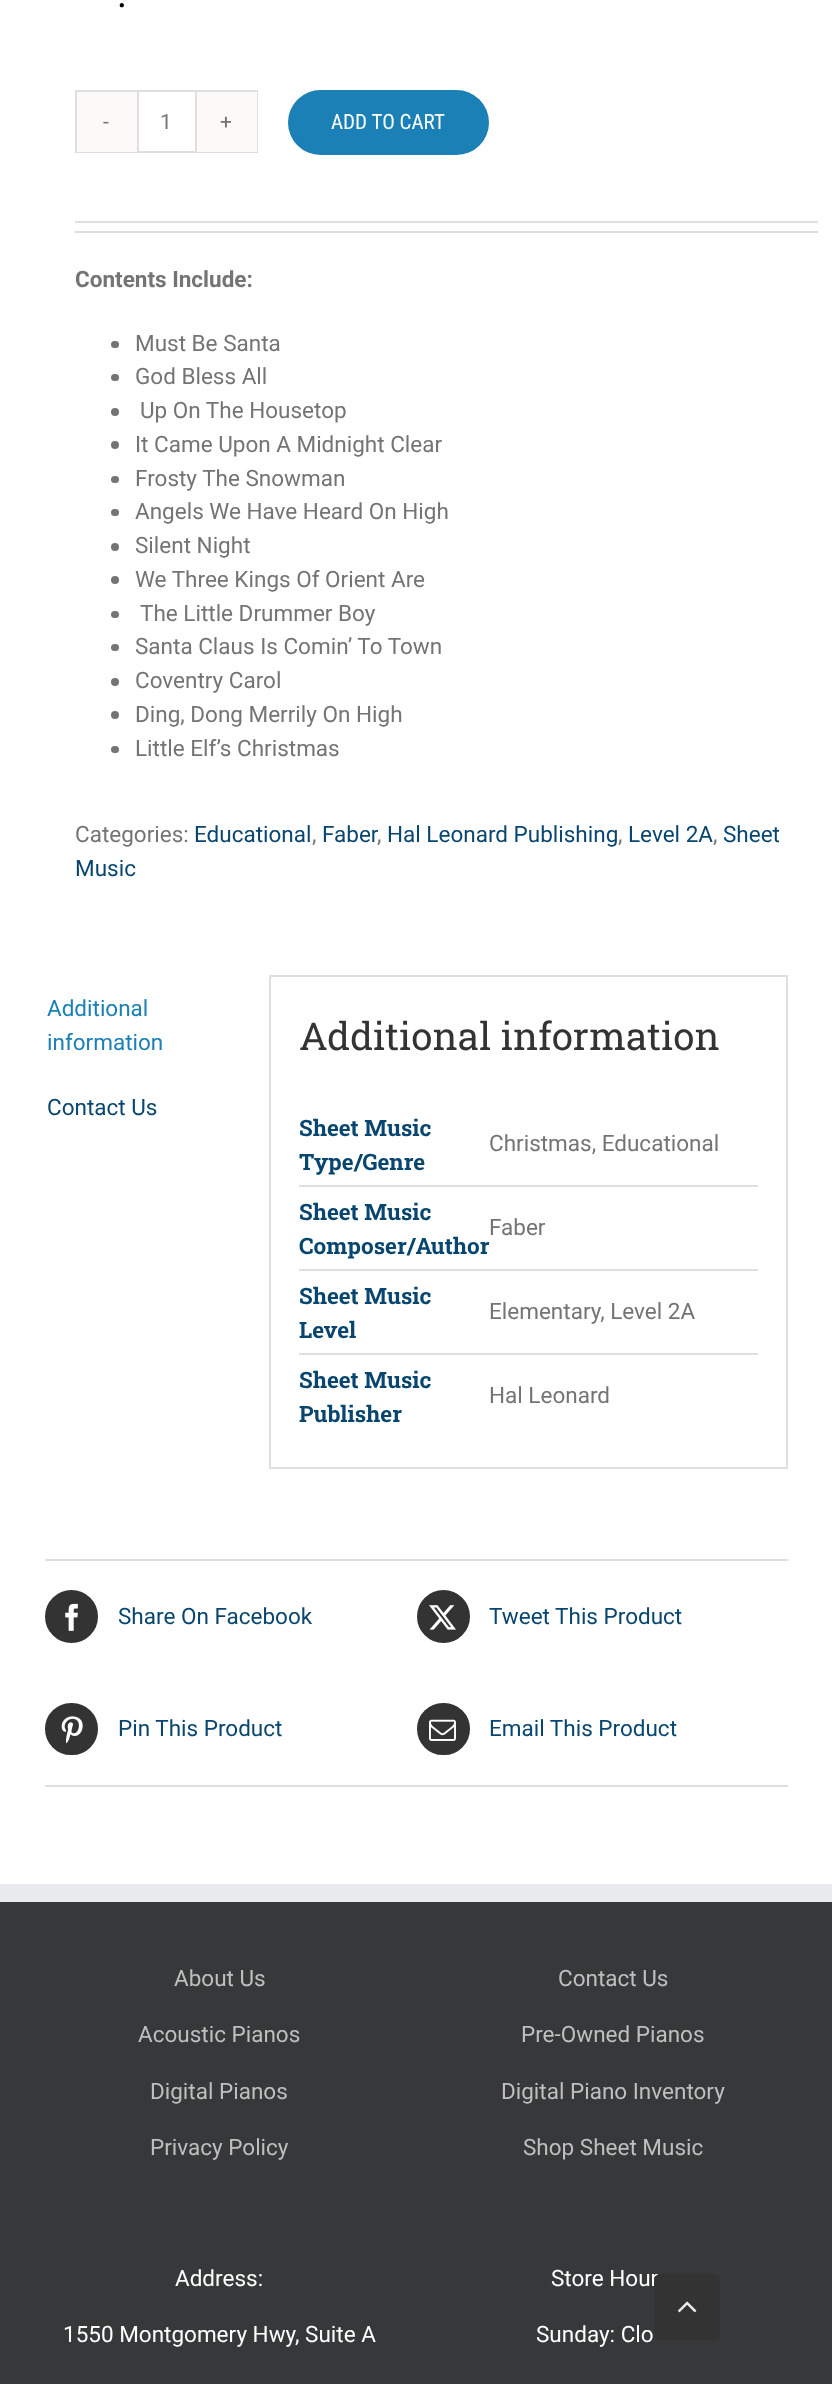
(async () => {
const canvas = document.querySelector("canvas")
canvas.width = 832
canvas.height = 2384
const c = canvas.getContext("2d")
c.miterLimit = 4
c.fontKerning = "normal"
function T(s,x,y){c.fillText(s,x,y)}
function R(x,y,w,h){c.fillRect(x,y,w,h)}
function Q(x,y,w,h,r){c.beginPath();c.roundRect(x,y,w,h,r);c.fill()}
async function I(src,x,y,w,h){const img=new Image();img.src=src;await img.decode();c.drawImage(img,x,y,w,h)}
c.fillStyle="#fff"
R(0,0,832,2384)
c.font="38px Roboto"
c.fillStyle="#000"
T(".",117,7)
c.strokeStyle="#e0dede"
c.lineWidth=2
c.strokeRect(76,91,181,61)
c.fillStyle="#fbfaf9"
R(77,92,60,60)
c.font="21px Roboto"
c.fillStyle="#747474"
T("-",103,129)
c.fillStyle="#e0dede"
R(195,92,2,60)
R(137,92,2,60)
c.fillStyle="#747474"
T("1",160,129)
c.fillStyle="#fbfaf9"
R(197,92,60,60)
c.fillStyle="#747474"
T("+",220,129)
c.fillStyle="#1a80b6"
Q(288,90,201,65,32.5)
c.font="21px Roboto Condensed"
c.fillStyle="#fff"
T("ADD TO CART",331,129)
c.fillStyle="#e0dede"
R(75,221,743,2)
R(75,231,743,2)
c.font="bold 22.5px Roboto"
c.fillStyle="#747474"
T("Contents Include:",75,287)
Q(111,341,8,7,3.5)
c.font="22.5px Roboto"
T("Must Be Santa",135,351)
Q(111,374,8,7,3.5)
T("God Bless All",135,384)
c.beginPath()
c.arc(115,412,4,0,7)
c.fill()
T("Up On The Housetop",140,418)
c.beginPath()
c.arc(115,445,4,0,7)
c.fill()
T("It Came Upon A Midnight Clear",135,452)
Q(111,476,8,7,3.5)
T("Frosty The Snowman",135,486)
Q(111,509,8,7,3.5)
T("Angels We Have Heard On High",135,519)
c.beginPath()
c.arc(115,547,4,0,7)
c.fill()
T("Silent Night",135,553)
c.beginPath()
c.arc(115,580,4,0,7)
c.fill()
T("We Three Kings Of Orient Are",135,587)
Q(111,611,8,7,3.5)
T("The Little Drummer Boy",140,621)
Q(111,644,8,7,3.5)
T("Santa Claus Is Comin’ To Town",135,654)
c.beginPath()
c.arc(115,682,4,0,7)
c.fill()
T("Coventry Carol",135,688)
c.beginPath()
c.arc(115,715,4,0,7)
c.fill()
T("Ding, Dong Merrily On High",135,722)
Q(111,746,8,7,3.5)
T("Little Elf’s Christmas",135,756)
T("Categories:",75,842)
c.fillStyle="#084670"
T("Educational",194,842)
c.fillStyle="#747474"
T(",",312,842)
c.fillStyle="#084670"
T("Faber",322,842)
c.fillStyle="#747474"
T(",",377,842)
c.fillStyle="#084670"
T("Hal Leonard Publishing",387,842)
c.fillStyle="#747474"
T(",",618,842)
c.fillStyle="#084670"
T("Level 2A",628,842)
c.fillStyle="#747474"
T(",",713,842)
c.fillStyle="#084670"
T("Sheet",723,842)
T("Music",75,876)
c.fillStyle="#1a80b6"
T("Additional",47,1016)
T("information",47,1050)
c.fillStyle="#084670"
T("Contact Us",47,1115)
c.strokeRect(270,976,517,492)
c.font="38.5px Roboto Slab"
c.fillStyle="#333"
T("Additional information",299,1050)
c.fillStyle="#e0dede"
R(299,1185,459,2)
c.font="bold 22.5px Roboto Slab"
c.fillStyle="#084670"
T("Sheet Music",299,1136)
T("Type/Genre",299,1170)
c.font="22.5px Roboto"
c.fillStyle="#747474"
T("Christmas, Educational",489,1151)
c.fillStyle="#e0dede"
R(299,1269,459,2)
c.font="bold 22.5px Roboto Slab"
c.fillStyle="#084670"
T("Sheet Music",299,1220)
T("Composer/Author",299,1254)
c.font="22.5px Roboto"
c.fillStyle="#747474"
T("Faber",489,1235)
c.fillStyle="#e0dede"
R(299,1353,459,2)
c.font="bold 22.5px Roboto Slab"
c.fillStyle="#084670"
T("Sheet Music",299,1304)
T("Level",299,1338)
c.font="22.5px Roboto"
c.fillStyle="#747474"
T("Elementary, Level 2A",489,1319)
c.font="bold 22.5px Roboto Slab"
c.fillStyle="#084670"
T("Sheet Music",299,1388)
T("Publisher",299,1422)
c.font="22.5px Roboto"
c.fillStyle="#747474"
T("Hal Leonard",489,1403)
c.fillStyle="#e0dede"
R(45,1559,743,2)
R(45,1785,743,2)
c.fillStyle="#333"
c.beginPath()
c.arc(71.5,1616.5,25.5,0,7)
c.fill()
c.strokeStyle="#333"
c.stroke()
await I("1.png",65,1603,13,28)
c.fillStyle="#084670"
T("Share On Facebook",118,1624)
c.fillStyle="#333"
c.beginPath()
c.arc(443.5,1616.5,25.5,0,7)
c.fill()
c.stroke()
await I("2.png",429,1605,27,25)
c.fillStyle="#084670"
T("Tweet This Product",489,1624)
c.fillStyle="#333"
c.beginPath()
c.roundRect(46,1704,51,50,25)
c.fill()
c.stroke()
await I("3.png",61,1716,22,28)
c.fillStyle="#084670"
T("Pin This Product",118,1736)
c.fillStyle="#333"
c.beginPath()
c.roundRect(418,1704,51,50,25)
c.fill()
c.stroke()
await I("4.png",429,1719,27,22)
c.fillStyle="#084670"
T("Email This Product",489,1736)
c.fillStyle="#363839"
R(0,1902,832,482)
c.fillStyle="#e9eaee"
R(0,1884,832,18)
c.fillStyle="#bfbfbf"
T("About Us",174,1986)
T("Acoustic Pianos",138,2042)
T("Digital Pianos",150,2099)
T("Privacy Policy",150,2155)
T("Contact Us",558,1986)
T("Pre-Owned Pianos",521,2042)
T("Digital Piano Inventory",501,2099)
T("Shop Sheet Music",523,2155)
c.fillStyle="#fff"
T("Address:",175,2286)
T("1550 Montgomery Hwy, Suite A",63,2342)
T("Store Hour",551,2286)
T("Sunday: Clo",536,2342)
c.fillStyle="#333333e6"
Q(654,2274,66,66,6)
await I("5.png",678,2301,19,12)
})()
